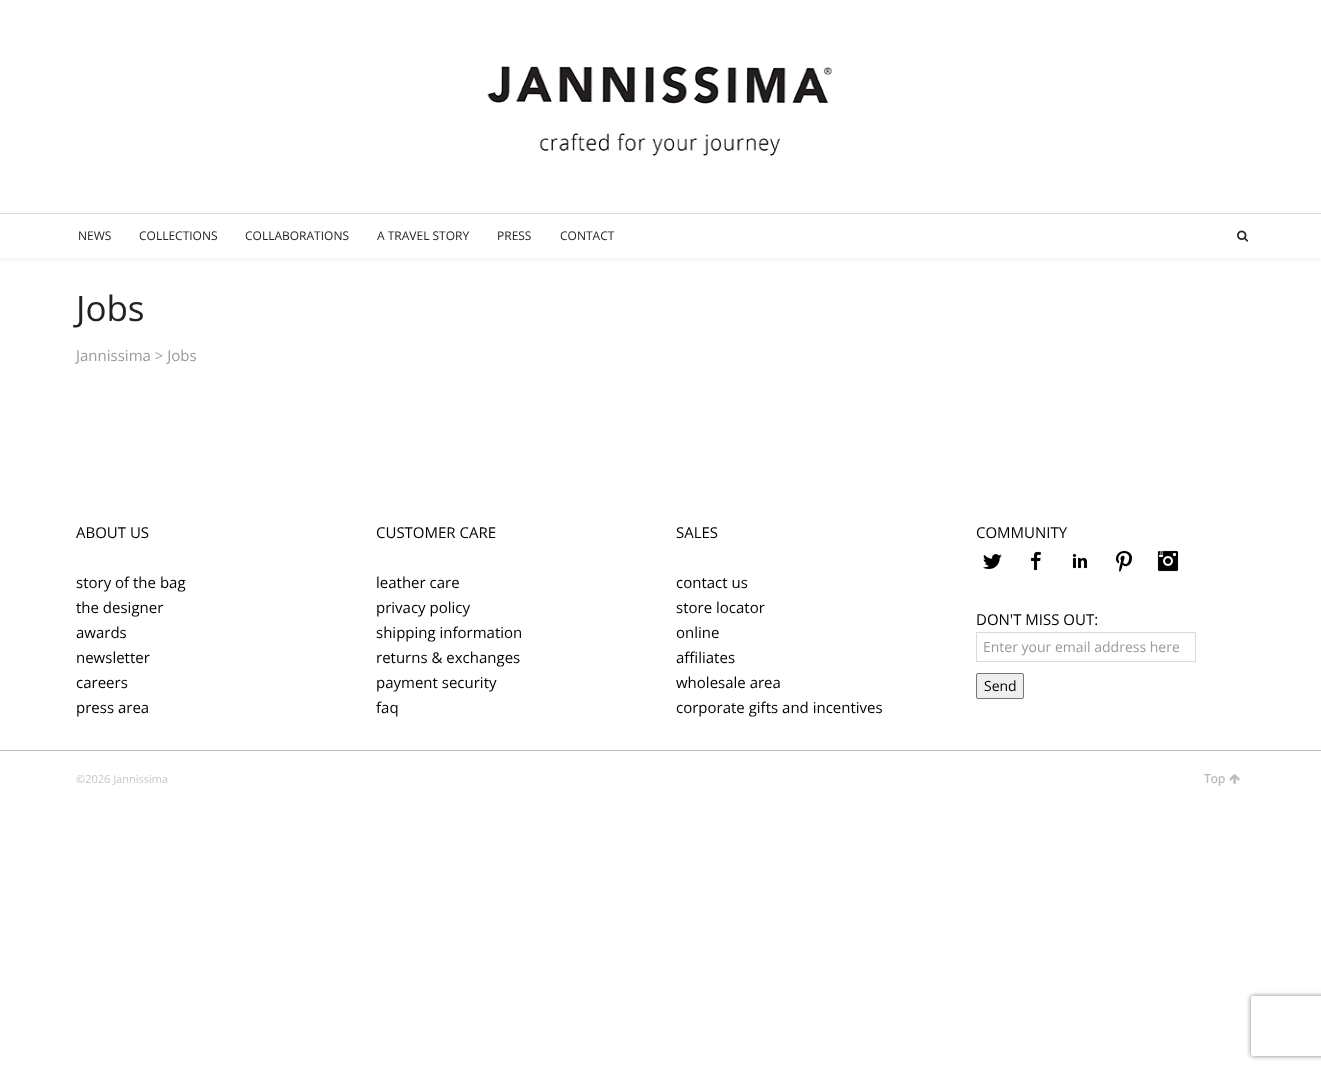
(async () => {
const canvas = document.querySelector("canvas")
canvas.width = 1321
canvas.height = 1070
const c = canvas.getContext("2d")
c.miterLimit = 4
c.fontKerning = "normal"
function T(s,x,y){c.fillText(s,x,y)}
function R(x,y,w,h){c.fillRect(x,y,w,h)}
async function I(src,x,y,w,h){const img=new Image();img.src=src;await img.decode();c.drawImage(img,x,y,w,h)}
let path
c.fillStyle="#fff"
R(0,0,1321,1070)
c.save()
c.beginPath()
c.rect(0,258,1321,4)
c.clip()
c.fillStyle="#0000000d"
c.filter="blur(2.5px)"
c.beginPath()
c.rect(0,3,1321,258)
c.fill()
c.filter="none"
c.restore()
await I("1.png",487,66,345,90)
c.fillStyle="#dbdbdb"
R(0,213,1321,1)
c.font="12px Open Sans"
c.fillStyle="#222"
T("NEWS",78,240)
T("COLLECTIONS",139,240)
T("COLLABORATIONS",245,240)
T("A TRAVEL STORY",377,240)
T("PRESS",497,240)
T("CONTACT",560,240)
await I("2.png",1237,230,12,12)
c.font="35px Open Sans"
T("Jobs",76,321)
c.font="15px Open Sans"
c.fillStyle="#999"
T("Jannissima > Jobs",76,361)
c.fillStyle="#000"
T("ABOUT US",76,538)
T("story of the bag",76,588)
T("the designer",76,613)
T("awards",76,638)
T("newsletter",76,663)
T("careers",76,688)
T("press area",76,713)
T("CUSTOMER CARE",376,538)
T("leather care",376,588)
T("privacy policy",376,613)
T("shipping information",376,638)
T("returns & exchanges",376,663)
T("payment security",376,688)
T("faq",376,713)
T("SALES",676,538)
T("contact us",676,588)
T("store locator",676,613)
T("online",676,638)
T("affiliates",676,663)
T("wholesale area",676,688)
T("corporate gifts and incentives",676,713)
T("COMMUNITY",976,538)
await I("3.png",983,553,19,17)
await I("4.png",1030,551,11,20)
await I("5.png",1072,553,16,16)
await I("6.png",1115,550,18,22)
await I("7.png",1157,550,22,22)
T("DON'T MISS OUT:",976,625)
c.strokeStyle="#dbdbdb"
c.strokeRect(976.5,632.5,219,29)
c.font="14px Open Sans"
c.fillStyle="#999"
T("Enter your email address here",983,652)
c.fillStyle="#efefef"
c.beginPath()
c.roundRect(976.5,673.5,47,25,1.5)
c.fill()
c.strokeStyle="#767676"
c.stroke()
c.fillStyle="#000"
T("Send",984,691)
c.fillStyle="#bcbcbc"
R(0,750,1321,1)
c.font="11px Open Sans"
c.fillStyle="#c6c6c6"
T("©2026 Jannissima",76,783)
c.font="bold 12px Open Sans"
c.fillStyle="#bcbcbc"
T("Top",1204,783)
await I("8.png",1229,774,11,10)
c.save()
path = new Path2D("M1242 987h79v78h-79zm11 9h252c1 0 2 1 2 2v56c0 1-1 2-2 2h-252c-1 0-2-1-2-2v-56c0-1 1-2 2-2z")
c.clip(path,"evenodd")
c.fillStyle="#808080"
c.filter="blur(2.5px)"
c.beginPath()
c.roundRect(1251,996,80,60,2)
c.fill()
c.filter="none"
c.restore()
})()
